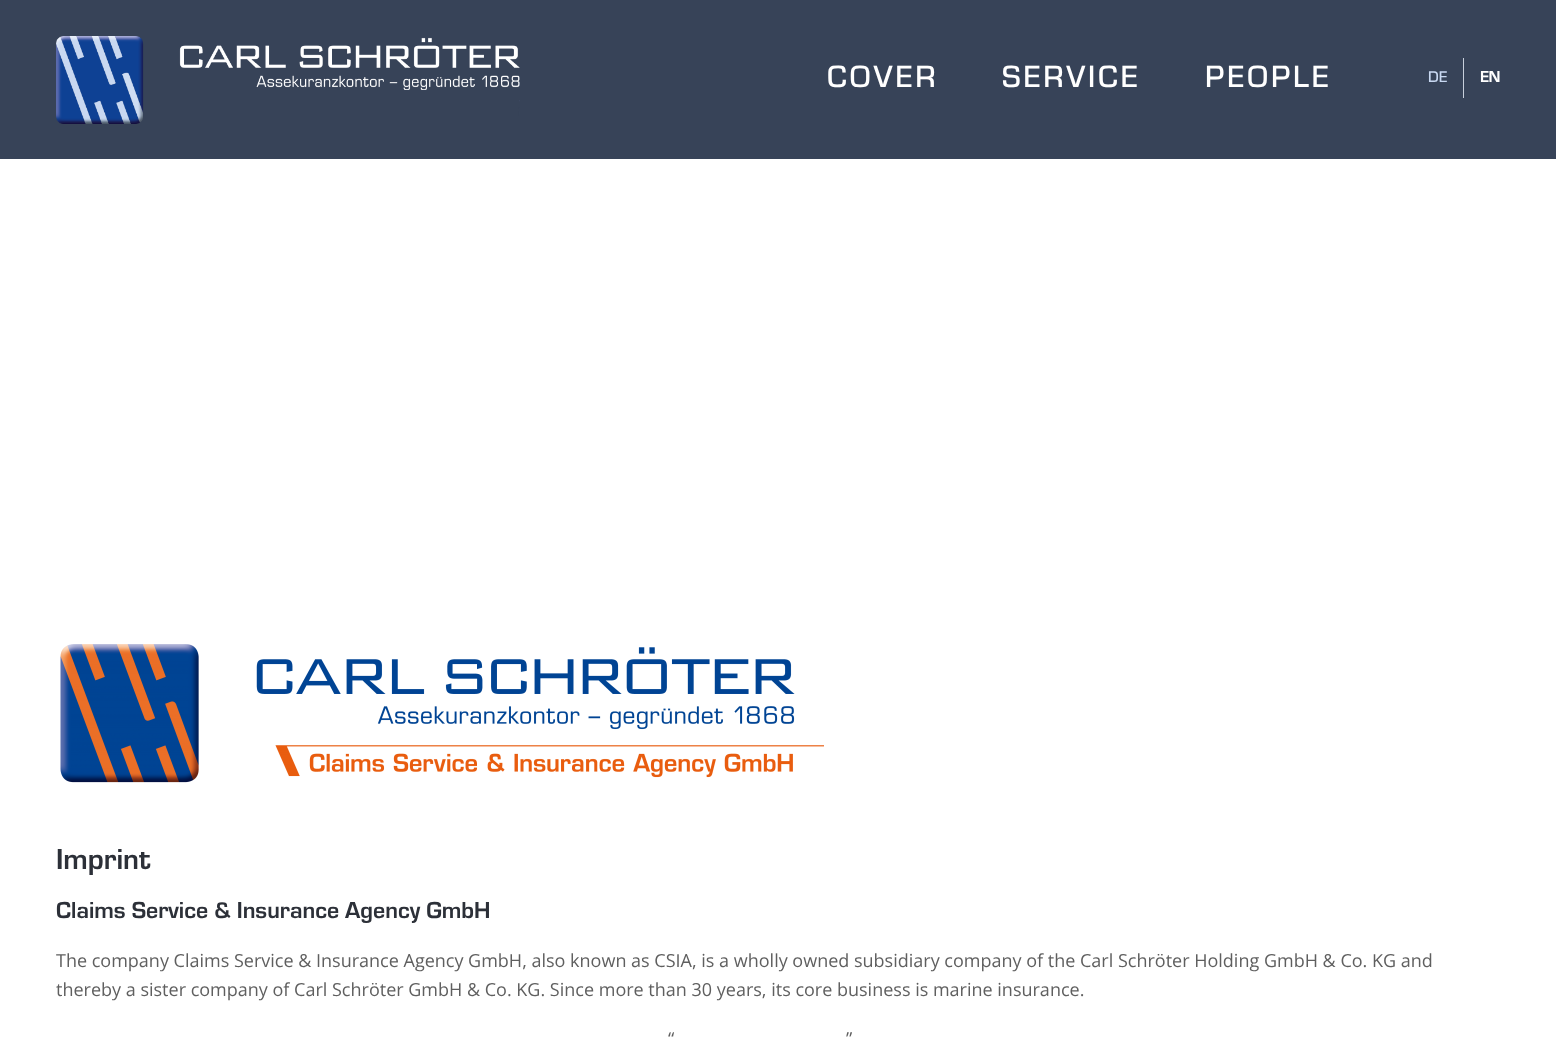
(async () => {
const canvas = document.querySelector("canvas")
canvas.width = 1556
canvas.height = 1040
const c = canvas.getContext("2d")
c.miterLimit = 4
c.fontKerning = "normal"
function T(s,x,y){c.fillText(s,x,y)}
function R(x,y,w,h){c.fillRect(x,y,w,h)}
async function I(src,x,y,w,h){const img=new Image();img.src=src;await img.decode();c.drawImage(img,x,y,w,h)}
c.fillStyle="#fff"
R(0,0,1556,1040)
c.fillStyle="#374358"
R(0,0,1556,159)
await I("1.png",56,36,464,88)
c.letterSpacing="2.75px"
c.font="32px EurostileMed"
c.fillStyle="#fff"
T("COVER",827,87)
T("SERVICE",1002,87)
T("PEOPLE",1205,87)
c.fillStyle="#c7cfdb"
R(1463,58,1,40)
c.letterSpacing="0px"
c.font="16px EurostileMed"
c.fillStyle="#c8d8f1"
T("DE",1428,82)
c.font="bold 16px EurostileMed"
c.fillStyle="#fff"
T("EN",1480,82)
await I("2.png",60,644,764,139)
c.font="30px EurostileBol"
c.fillStyle="#2c3038"
T("Imprint",56,869)
c.font="24px EurostileBol"
T("Claims Service & Insurance Agency GmbH",56,918)
c.font="18px Open Sans"
c.fillStyle="#5f5f5f"
T("The company Claims Service & Insurance Agency GmbH, also known as CSIA, is a wholly owned subsidiary company of the Carl Schröter Holding GmbH & Co. KG and",56,967)
T("thereby a sister company of Carl Schröter GmbH & Co. KG. Since more than 30 years, its core business is marine insurance.",56,996)
T("“",668,1045)
T("”",846,1045)
})()
